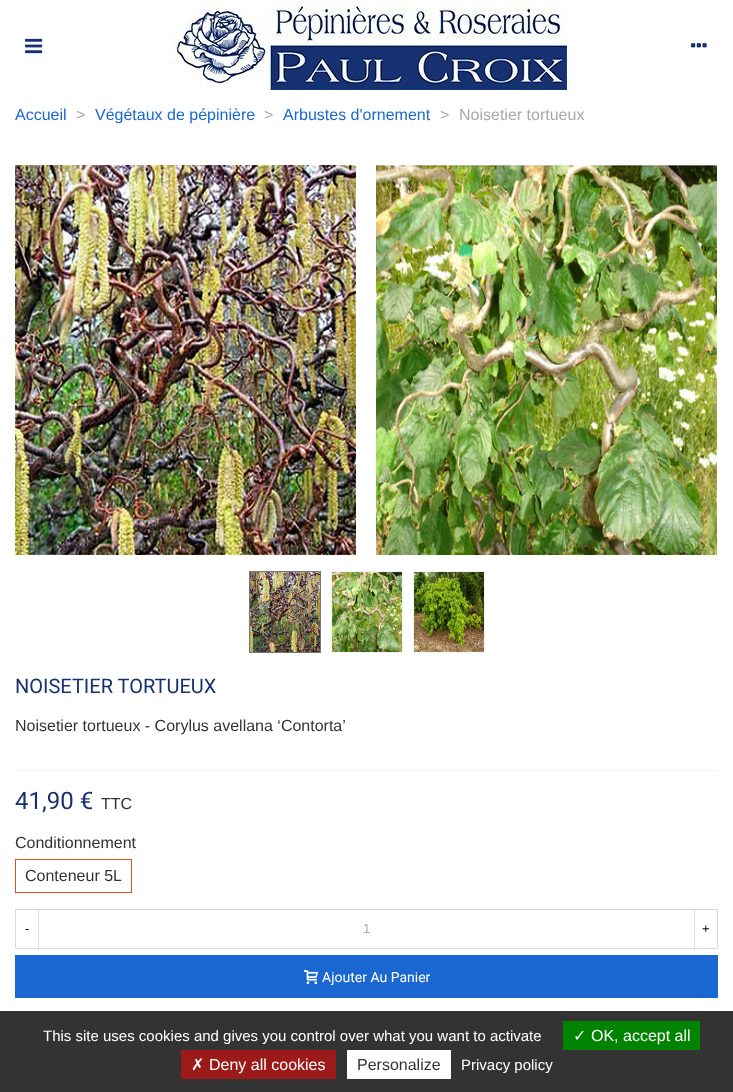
(async () => {
const canvas = document.querySelector("canvas")
canvas.width = 733
canvas.height = 1092
const c = canvas.getContext("2d")
c.miterLimit = 4
c.fontKerning = "normal"
function T(s,x,y){c.fillText(s,x,y)}
function R(x,y,w,h){c.fillRect(x,y,w,h)}
async function I(src,x,y,w,h){const img=new Image();img.src=src;await img.decode();c.drawImage(img,x,y,w,h)}
c.fillStyle="#fff"
R(0,0,733,1092)
await I("1.png",25,38,18,16)
await I("2.png",167,0,400,90)
await I("3.png",691,43,16,5)
c.font="16px Liberation Sans"
c.fillStyle="#1a67d1"
T("Accueil",15,120)
c.fillStyle="#a9a9a9"
T(">",76,120)
c.fillStyle="#1a67d1"
T("Végétaux de pépinière",95,120)
c.fillStyle="#a9a9a9"
T(">",264,120)
c.fillStyle="#1a67d1"
T("Arbustes d'ornement",283,120)
c.fillStyle="#a9a9a9"
T(">",440,120)
T("Noisetier tortueux",459,120)
await I("4.png",15,165,341,390)
await I("5.png",376,165,341,390)
c.strokeStyle="#777"
c.strokeRect(249.5,571.5,71,81)
await I("6.png",250,572,70,80)
c.strokeStyle="#f2f2f2"
c.strokeRect(331.5,571.5,71,81)
await I("7.png",332,572,70,80)
c.strokeRect(413.5,571.5,71,81)
await I("8.png",414,572,70,80)
c.font="20px Roboto"
c.fillStyle="#163171"
T("NOISETIER TORTUEUX",15,693)
c.font="16px Liberation Sans"
c.fillStyle="#333"
T("Noisetier tortueux - Corylus avellana ‘Contorta’",15,731)
c.fillStyle="#f2f2f2"
R(15,770,703,1)
c.font="24px Roboto"
c.fillStyle="#163171"
T("41,90 €",15,809)
c.font="16px Liberation Sans"
c.fillStyle="#333"
T("TTC",101,809)
T("Conditionnement",15,848)
c.strokeStyle="#e54d26"
c.strokeRect(15.5,859.5,116,33)
T("Conteneur 5L",25,881)
c.strokeStyle="#d9d9d9"
c.strokeRect(15.5,909.5,23,39)
c.font="13px Liberation Sans"
c.fillStyle="#000"
T("-",25,933)
c.strokeRect(38.5,909.5,656,39)
c.fillStyle="#a9a9a9"
T("1",363,933)
c.strokeRect(694.5,909.5,23,39)
c.fillStyle="#000"
T("+",702,933)
c.fillStyle="#1a67d1"
R(15,955,703,43)
await I("9.png",304,970,14,15)
c.font="14px Roboto"
c.fillStyle="#fff"
T("Ajouter Au Panier",322,982)
c.fillStyle="#333"
R(0,1011,733,81)
c.font="15px Liberation Sans"
c.fillStyle="#fff"
T("This site uses cookies and gives you control over what you want to activate",43,1041)
c.fillStyle="#008300"
R(563,1021,137,29)
c.font="16px DejaVu Sans"
c.fillStyle="#fff"
T("✓",573,1041)
c.font="16px Liberation Sans"
T("OK, accept all",591,1041)
c.fillStyle="#9c1a1a"
R(181,1050,155,29)
c.font="16px DejaVu Sans"
c.fillStyle="#fff"
T("✗",191,1070)
c.font="16px Liberation Sans"
T("Deny all cookies",209,1070)
R(347,1050,104,29)
c.fillStyle="#333"
T("Personalize",357,1070)
c.font="15px Liberation Sans"
c.fillStyle="#fff"
T("Privacy policy",461,1070)
})()
